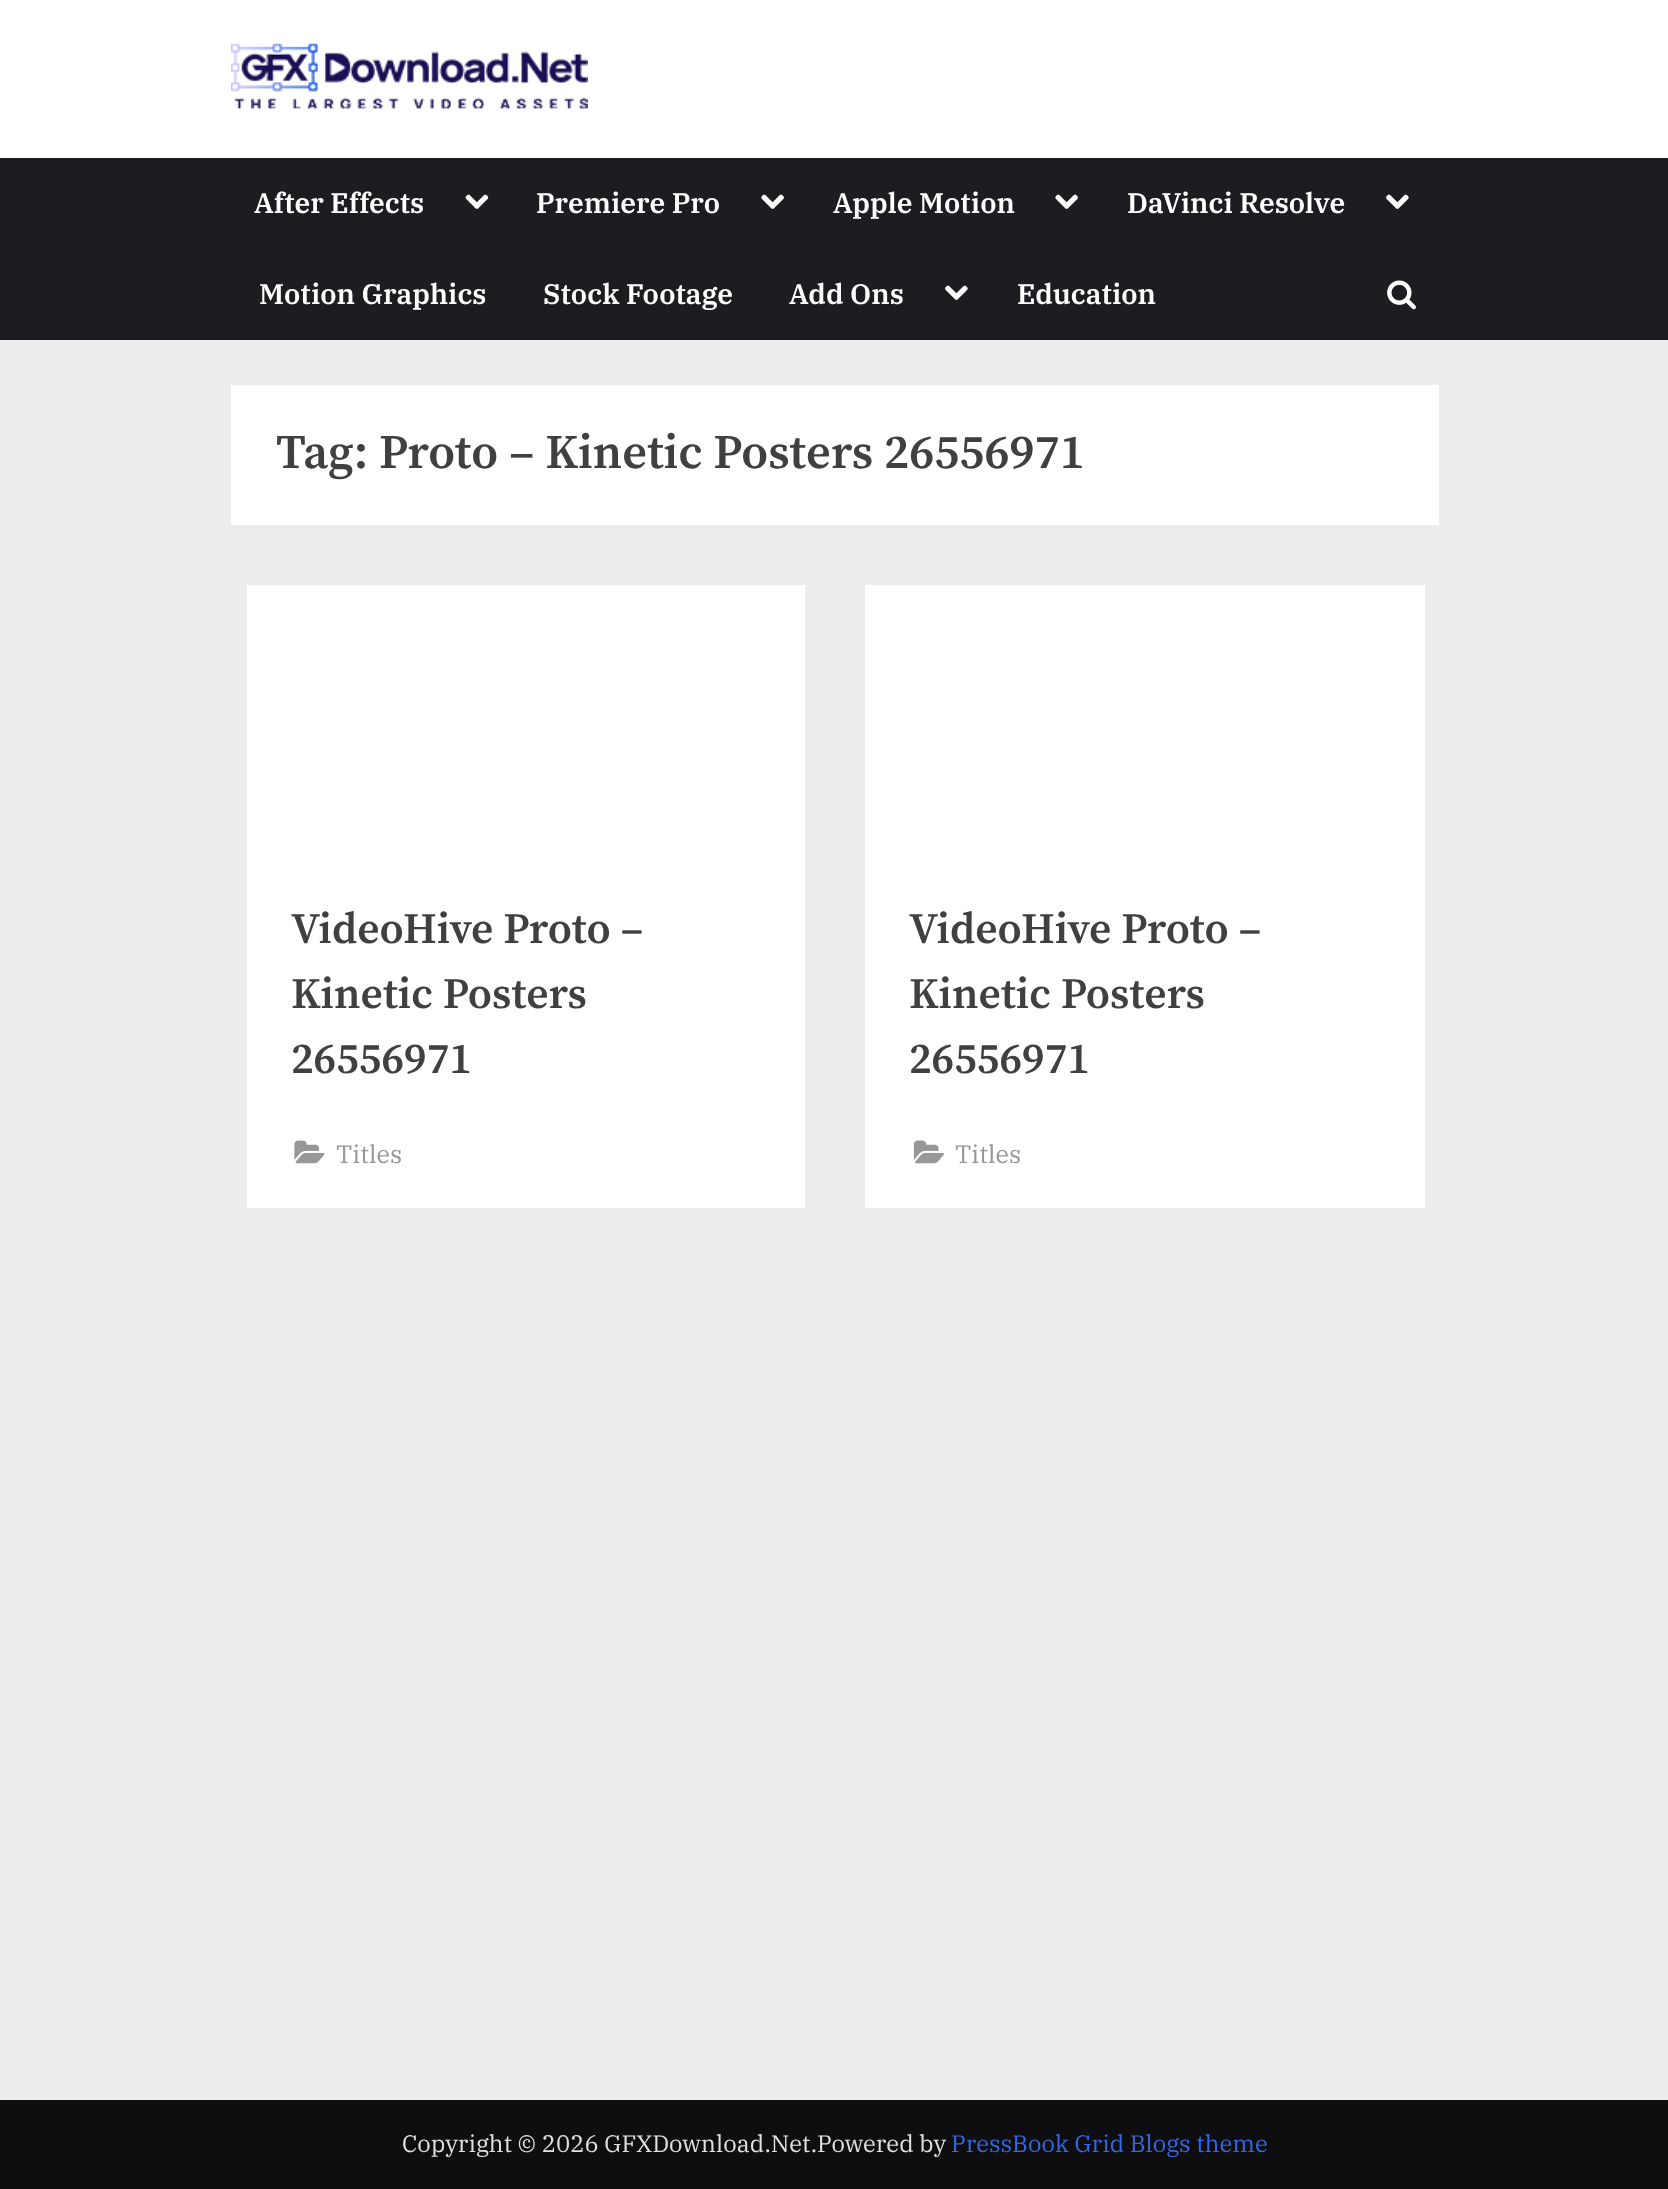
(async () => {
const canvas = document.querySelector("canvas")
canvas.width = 1668
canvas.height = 2189
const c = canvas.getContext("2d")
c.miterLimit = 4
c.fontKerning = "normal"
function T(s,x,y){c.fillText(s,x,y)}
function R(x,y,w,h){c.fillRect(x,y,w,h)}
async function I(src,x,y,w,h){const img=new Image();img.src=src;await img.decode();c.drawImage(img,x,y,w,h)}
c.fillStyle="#ededed"
R(0,0,1668,2189)
c.fillStyle="#fff"
R(0,0,1668,158)
await I("1.png",231,43,357,66)
c.fillStyle="#1c1c21"
R(0,158,1668,182)
c.font="600 28.25px IBM Plex Serif"
c.fillStyle="#fff"
T("After Effects",254,213)
await I("2.png",465,194,24,15)
T("Premiere Pro",536,213)
await I("3.png",761,194,23,15)
T("Apple Motion",833,213)
await I("3.png",1055,194,23,15)
T("DaVinci Resolve",1127,213)
await I("4.png",1386,194,23,15)
T("Motion Graphics",259,304)
T("Stock Footage",543,304)
T("Add Ons",789,304)
await I("4.png",945,285,23,15)
T("Education",1017,304)
await I("5.png",1387,280,29,30)
R(231,385,1208,140)
c.font="600 48.25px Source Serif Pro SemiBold"
c.fillStyle="#404040"
T("Tag: Proto – Kinetic Posters 26556971",276,468)
c.fillStyle="#fff"
R(247,585,558,623)
c.font="600 43.5px Source Serif Pro SemiBold"
c.fillStyle="#404040"
T("VideoHive Proto –",291,943)
T("Kinetic Posters",291,1008)
T("26556971",291,1073)
await I("6.png",294,1140,31,24)
c.font="25px IBM Plex Serif"
c.fillStyle="#979797"
T("Titles",336,1163)
c.fillStyle="#fff"
R(865,585,560,623)
c.font="600 43.5px Source Serif Pro SemiBold"
c.fillStyle="#404040"
T("VideoHive Proto –",909,943)
T("Kinetic Posters",909,1008)
T("26556971",909,1073)
await I("7.png",913,1140,31,24)
c.font="25px IBM Plex Serif"
c.fillStyle="#979797"
T("Titles",955,1163)
c.fillStyle="#0e0e11"
R(0,2100,1668,89)
c.font="23.8px IBM Plex Serif"
c.fillStyle="#e1e1e1"
T("Copyright © 2026 GFXDownload.Net.Powered by",402,2152)
c.fillStyle="#3369e5"
T("PressBook Grid Blogs theme",951,2152)
})()
